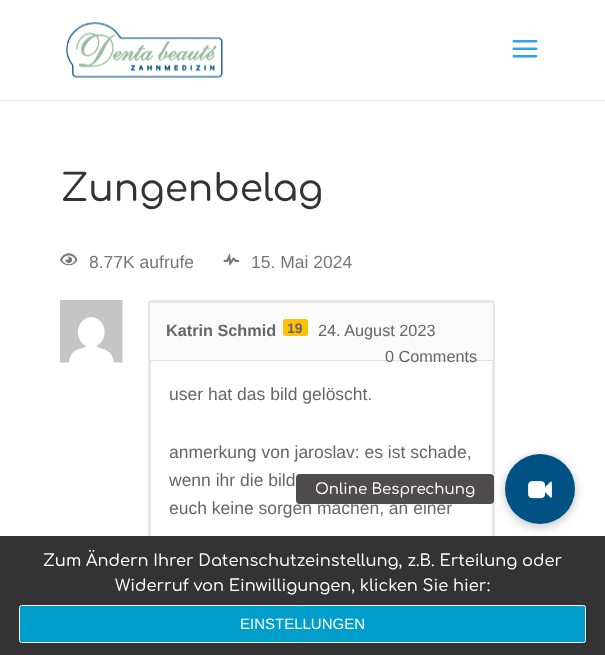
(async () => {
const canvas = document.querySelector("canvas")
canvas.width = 605
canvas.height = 655
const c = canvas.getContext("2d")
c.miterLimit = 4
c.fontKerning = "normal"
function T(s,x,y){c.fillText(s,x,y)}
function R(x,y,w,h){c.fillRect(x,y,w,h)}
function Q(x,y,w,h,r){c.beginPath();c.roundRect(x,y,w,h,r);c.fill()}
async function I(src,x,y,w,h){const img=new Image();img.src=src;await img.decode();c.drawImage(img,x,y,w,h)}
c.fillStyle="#fff"
R(0,0,605,655)
c.fillStyle="#e6e6e6"
R(0,100,605,1)
await I("1.png",66,22,157,56)
await I("2.png",512,40,26,18)
c.font="500 37.5px Comfortaa"
c.fillStyle="#333"
T("Zungenbelag",61,201)
await I("3.png",60,253,18,13)
c.font="17.5px Liberation Sans"
c.fillStyle="#777"
T("8.77K aufrufe",89,268)
await I("4.png",223,253,17,13)
T("15. Mai 2024",251,268)
await I("5.png",60,300,63,63)
c.beginPath()
c.roundRect(149.5,301.5,344,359,2.5)
c.strokeStyle="#e6e6e6"
c.lineWidth=3
c.stroke()
c.fillStyle="#fafafa"
R(150,303,343,57)
c.fillStyle="#e1e1e1"
R(150,360,343,1)
c.font="bold 16.25px Liberation Sans"
c.fillStyle="#666"
T("Katrin Schmid",166,336)
c.fillStyle="#ffc107"
Q(283,319,25,17,2.5)
c.font="bold 14px Liberation Sans"
c.fillStyle="#666"
T("19",287,333)
c.font="16.25px Liberation Sans"
T("24. August 2023",318,336)
T("0 Comments",385,362)
c.font="17.5px Liberation Sans"
T("user hat das bild gelöscht.",169,400)
T("anmerkung von jaroslav: es ist schade,",169,458)
T("wenn ihr die bild",169,486)
T("euch keine sorgen machen, an einer",169,514)
c.fillStyle="#00000033"
c.filter="blur(4px)"
c.beginPath()
c.roundRect(504,455,72,73,36)
c.fill()
c.filter="none"
c.fillStyle="#005184"
c.beginPath()
c.arc(540,489,35,0,7)
c.fill()
c.fillStyle="#4e4c4c"
Q(296,474,198,30,4)
c.font="500 15px Comfortaa"
c.fillStyle="#fff"
T("Online Besprechung",315,494)
await I("6.png",528,481,24,18)
c.fillStyle="#333"
R(0,536,605,119)
c.font="500 16.25px Comfortaa"
c.fillStyle="#fff"
T("Zum Ändern Ihrer Datenschutzeinstellung, z.B. Erteilung oder",43,566)
T("Widerruf von Einwilligungen, klicken Sie hier:",115,591)
c.fillStyle="#009ecb"
c.beginPath()
c.roundRect(19.5,605.5,566,37,2)
c.fill()
c.strokeStyle="#f3f3f3"
c.lineWidth=1
c.stroke()
c.font="15px Liberation Sans"
c.fillStyle="#fff"
T("EINSTELLUNGEN",240,629)
})()
